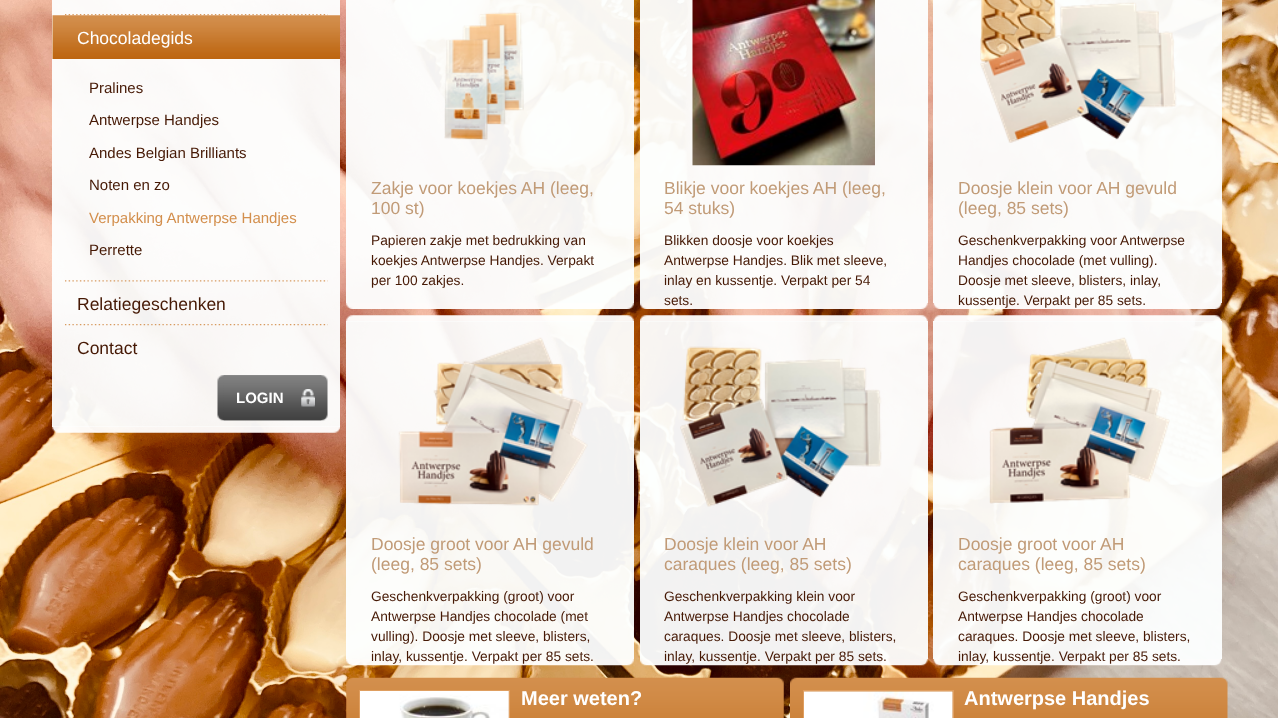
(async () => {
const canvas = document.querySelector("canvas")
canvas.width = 1278
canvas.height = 718
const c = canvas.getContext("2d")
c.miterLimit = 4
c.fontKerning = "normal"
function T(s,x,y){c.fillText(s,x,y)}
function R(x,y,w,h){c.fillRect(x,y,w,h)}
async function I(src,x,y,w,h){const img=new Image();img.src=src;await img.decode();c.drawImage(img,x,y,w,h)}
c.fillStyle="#fff"
R(0,0,1278,718)
await I("1.png",0,0,1278,718)
c.fillStyle="#fdfffff2"
R(52,0,288,369)
await I("2.png",65,14,263,2)
await I("3.png",52,15,288,44)
c.font="17.5px Liberation Sans"
c.fillStyle="#fff"
T("Chocoladegids",77,44)
await I("4.png",65,280,263,2)
c.font="15px Liberation Sans"
c.fillStyle="#461905"
T("Pralines",89,93)
T("Antwerpse Handjes",89,125)
T("Andes Belgian Brilliants",89,158)
T("Noten en zo",89,190)
c.fillStyle="#d38f4d"
T("Verpakking Antwerpse Handjes",89,223)
c.fillStyle="#461905"
T("Perrette",89,255)
await I("5.png",65,324,263,2)
c.font="17.5px Liberation Sans"
T("Relatiegeschenken",77,310)
T("Contact",77,354)
c.fillStyle="#fdfffff2"
R(52,369,288,58)
await I("6.png",217,375,105,46)
await I("7.png",223,375,105,46)
await I("8.png",301,389,14,18)
c.font="bold 15px Liberation Sans"
c.fillStyle="#fff"
T("LOGIN",236,403)
await I("9.png",52,426,288,7)
c.fillStyle="#fdfffff2"
R(346,0,288,303)
await I("10.png",444,12,80,129)
c.font="17.5px Liberation Sans"
c.fillStyle="#c19b77"
T("Zakje voor koekjes AH (leeg,",371,194)
T("100 st)",371,214)
c.font="13.75px Liberation Sans"
c.fillStyle="#461905"
T("Papieren zakje met bedrukking van",371,245)
T("koekjes Antwerpse Handjes. Verpakt",371,265)
T("per 100 zakjes.",371,285)
await I("11.png",346,303,288,6)
c.fillStyle="#fdfffff2"
R(640,0,288,303)
await I("12.png",692,0,183,166)
c.font="17.5px Liberation Sans"
c.fillStyle="#c19b77"
T("Blikje voor koekjes AH (leeg,",664,194)
T("54 stuks)",664,214)
c.font="13.75px Liberation Sans"
c.fillStyle="#461905"
T("Blikken doosje voor koekjes",664,245)
T("Antwerpse Handjes. Blik met sleeve,",664,265)
T("inlay en kussentje. Verpakt per 54",664,285)
await I("13.png",640,303,288,6)
T("sets.",664,305)
c.fillStyle="#fdfffff2"
R(933,0,289,303)
await I("14.png",980,0,197,143)
c.font="17.5px Liberation Sans"
c.fillStyle="#c19b77"
T("Doosje klein voor AH gevuld",958,194)
T("(leeg, 85 sets)",958,214)
c.font="13.75px Liberation Sans"
c.fillStyle="#461905"
T("Geschenkverpakking voor Antwerpse",958,245)
T("Handjes chocolade (met vulling).",958,265)
T("Doosje met sleeve, blisters, inlay,",958,285)
await I("15.png",933,303,289,6)
T("kussentje. Verpakt per 85 sets.",958,305)
await I("16.png",346,315,288,7)
c.fillStyle="#fdfffff2"
R(346,321,288,338)
await I("17.png",398,337,190,169)
c.font="17.5px Liberation Sans"
c.fillStyle="#c19b77"
T("Doosje groot voor AH gevuld",371,550)
T("(leeg, 85 sets)",371,570)
c.font="13.75px Liberation Sans"
c.fillStyle="#461905"
T("Geschenkverpakking (groot) voor",371,601)
T("Antwerpse Handjes chocolade (met",371,621)
T("vulling). Doosje met sleeve, blisters,",371,641)
await I("18.png",346,659,288,7)
T("inlay, kussentje. Verpakt per 85 sets.",371,661)
await I("19.png",640,315,288,7)
c.fillStyle="#fdfffff2"
R(640,321,288,338)
await I("20.png",680,346,202,161)
c.font="17.5px Liberation Sans"
c.fillStyle="#c19b77"
T("Doosje klein voor AH",664,550)
T("caraques (leeg, 85 sets)",664,570)
c.font="13.75px Liberation Sans"
c.fillStyle="#461905"
T("Geschenkverpakking klein voor",664,601)
T("Antwerpse Handjes chocolade",664,621)
T("caraques. Doosje met sleeve, blisters,",664,641)
await I("21.png",640,659,288,7)
T("inlay, kussentje. Verpakt per 85 sets.",664,661)
await I("22.png",933,315,289,7)
c.fillStyle="#fdfffff2"
R(933,321,289,338)
await I("23.png",989,337,181,167)
c.font="17.5px Liberation Sans"
c.fillStyle="#c19b77"
T("Doosje groot voor AH",958,550)
T("caraques (leeg, 85 sets)",958,570)
c.font="13.75px Liberation Sans"
c.fillStyle="#461905"
T("Geschenkverpakking (groot) voor",958,601)
T("Antwerpse Handjes chocolade",958,621)
T("caraques. Doosje met sleeve, blisters,",958,641)
await I("24.png",933,659,289,7)
T("inlay, kussentje. Verpakt per 85 sets.",958,661)
await I("25.png",346,677,438,41)
await I("26.png",360,691,149,27)
c.strokeStyle="#df9e60"
c.strokeRect(359.5,690.5,150,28)
c.font="bold 20px Liberation Sans"
c.fillStyle="#fff"
T("Meer weten?",521,705)
await I("27.png",790,677,438,41)
await I("28.png",804,691,149,27)
c.strokeRect(803.5,690.5,150,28)
T("Antwerpse Handjes",964,705)
})()
